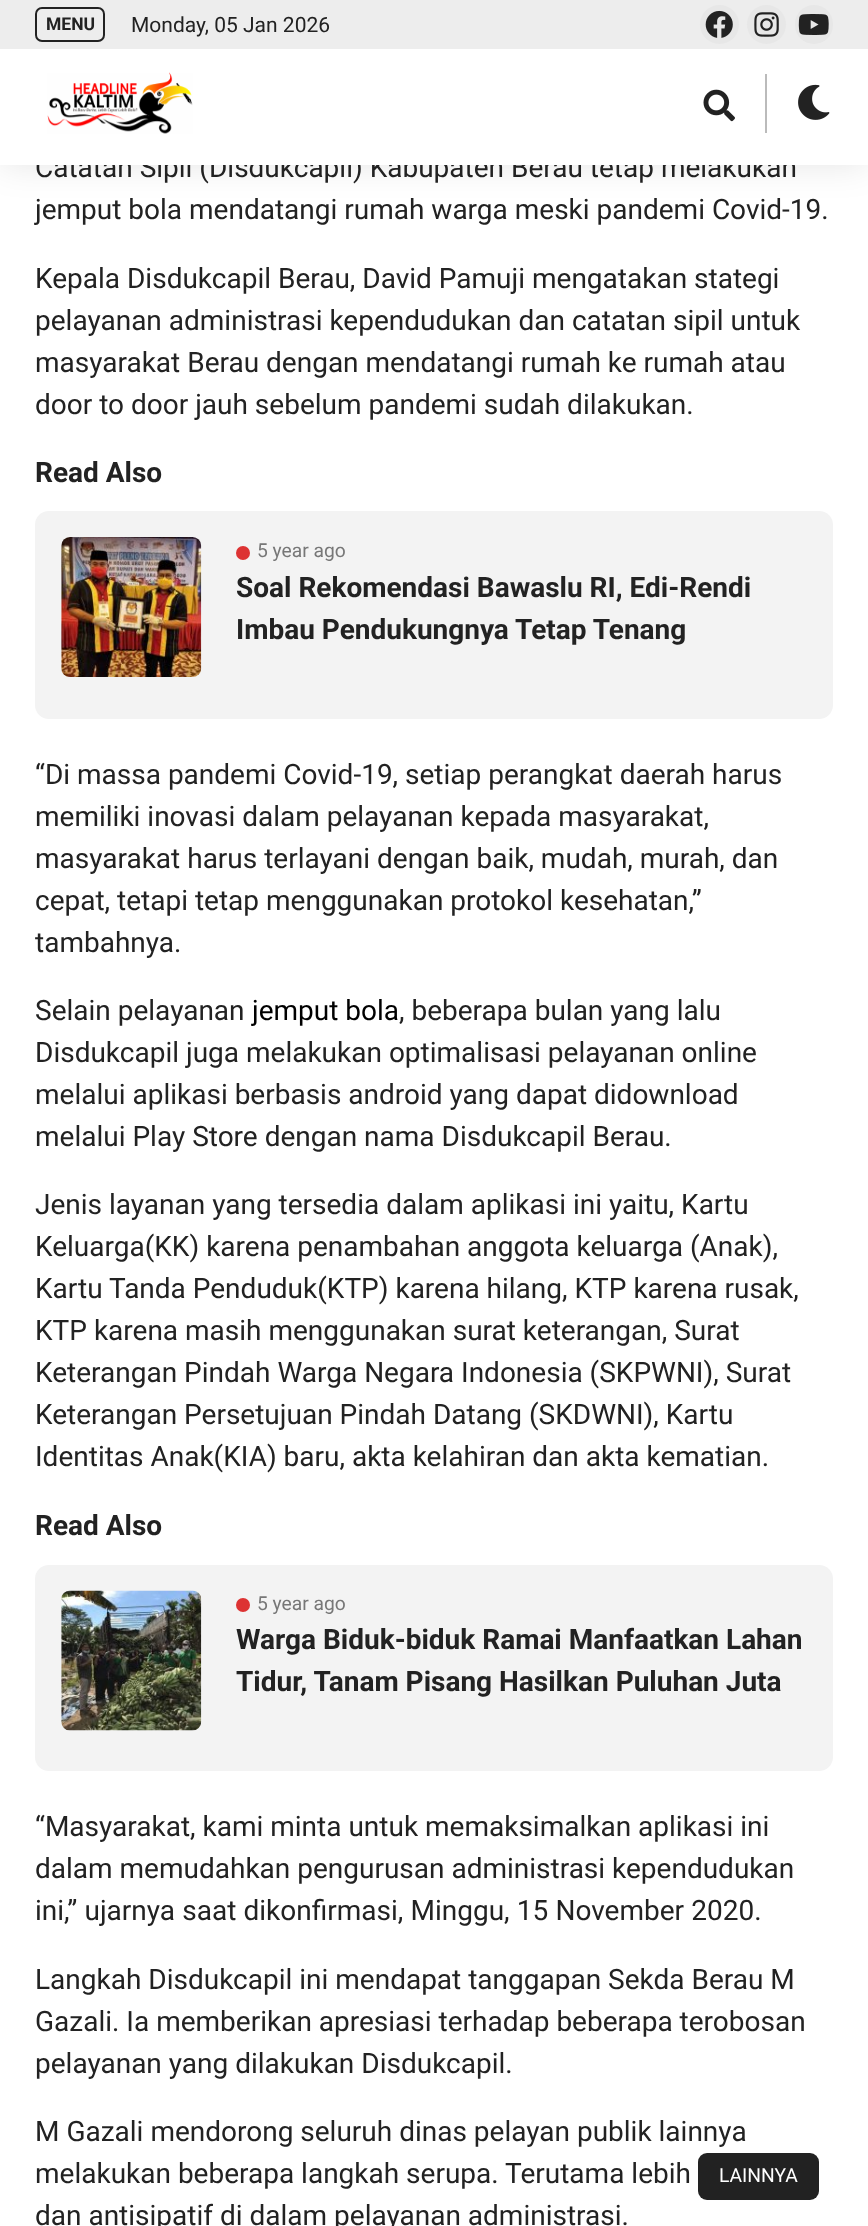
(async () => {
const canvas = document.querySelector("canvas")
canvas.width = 868
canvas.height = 2226
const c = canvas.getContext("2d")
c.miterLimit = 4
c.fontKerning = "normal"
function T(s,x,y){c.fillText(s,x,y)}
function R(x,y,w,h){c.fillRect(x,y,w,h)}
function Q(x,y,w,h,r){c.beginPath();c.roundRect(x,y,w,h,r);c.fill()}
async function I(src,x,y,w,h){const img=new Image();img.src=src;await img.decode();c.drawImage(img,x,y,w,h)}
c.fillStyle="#fff"
R(0,0,868,2226)
c.fillStyle="#0000001a"
c.filter="blur(17.5px)"
c.beginPath()
c.rect(0,0,868,165)
c.fill()
c.filter="none"
c.font="28px Roboto"
c.fillStyle="#222"
T("Catatan Sipil (Disdukcapil) Kabupaten Berau tetap melakukan",35,177)
c.fillStyle="#fff"
R(0,49,868,116)
c.fillStyle="#ededed"
R(0,0,868,49)
c.beginPath()
c.roundRect(36,8,68,33,6)
c.strokeStyle="#222"
c.lineWidth=2
c.stroke()
c.font="bold 17.5px Roboto"
c.fillStyle="#222"
T("MENU",46,30)
c.font="21px Roboto"
T("Monday, 05 Jan 2026",131,32)
c.fillStyle="#e7e7e7"
c.beginPath()
c.arc(719.5,24.5,19.5,0,7)
c.fill()
await I("1.png",705,10,28,28)
c.beginPath()
c.arc(766.5,24.5,19.5,0,7)
c.fill()
await I("2.png",754,12,25,25)
Q(795,5,38,39,19)
await I("3.png",798,14,31,21)
await I("4.png",47,72,146,62)
await I("5.png",703,89,32,33)
c.fillStyle="#bbb"
R(765,74,2,59)
await I("6.png",798,84,32,36)
c.font="28px Roboto"
c.fillStyle="#222"
T("jemput bola mendatangi rumah warga meski pandemi Covid-19.",35,219)
T("Kepala Disdukcapil Berau, David Pamuji mengatakan stategi",35,288)
T("pelayanan administrasi kependudukan dan catatan sipil untuk",35,330)
T("masyarakat Berau dengan mendatangi rumah ke rumah atau",35,372)
T("door to door jauh sebelum pandemi sudah dilakukan.",35,414)
c.font="bold 28px Roboto"
T("Read Also",35,482)
c.fillStyle="#f3f3f3"
Q(35,511,798,208,14)
await I("7.png",61,537,141,140)
c.fillStyle="#d33"
c.beginPath()
c.arc(243,553,7,0,7)
c.fill()
c.font="19.25px Roboto"
c.fillStyle="#777"
T("5 year ago",257,557)
c.font="bold 28px Roboto"
c.fillStyle="#222"
T("Soal Rekomendasi Bawaslu RI, Edi-Rendi",236,597)
T("Imbau Pendukungnya Tetap Tenang",236,639)
c.font="28px Roboto"
T("“Di massa pandemi Covid-19, setiap perangkat daerah harus",35,784)
T("memiliki inovasi dalam pelayanan kepada masyarakat,",35,826)
T("masyarakat harus terlayani dengan baik, mudah, murah, dan",35,868)
T("cepat, tetapi tetap menggunakan protokol kesehatan,”",35,910)
T("tambahnya.",35,952)
T("Selain pelayanan",35,1020)
c.fillStyle="#000"
T("jemput bola",252,1020)
c.fillStyle="#222"
T(", beberapa bulan yang lalu",399,1020)
T("Disdukcapil juga melakukan optimalisasi pelayanan online",35,1062)
T("melalui aplikasi berbasis android yang dapat didownload",35,1104)
T("melalui Play Store dengan nama Disdukcapil Berau.",35,1146)
T("Jenis layanan yang tersedia dalam aplikasi ini yaitu, Kartu",35,1214)
T("Keluarga(KK) karena penambahan anggota keluarga (Anak),",35,1256)
T("Kartu Tanda Penduduk(KTP) karena hilang, KTP karena rusak,",35,1298)
T("KTP karena masih menggunakan surat keterangan, Surat",35,1340)
T("Keterangan Pindah Warga Negara Indonesia (SKPWNI), Surat",35,1382)
T("Keterangan Persetujuan Pindah Datang (SKDWNI), Kartu",35,1424)
T("Identitas Anak(KIA) baru, akta kelahiran dan akta kematian.",35,1466)
c.font="bold 28px Roboto"
T("Read Also",35,1535)
c.fillStyle="#f3f3f3"
Q(35,1565,798,206,14)
await I("8.png",61,1590,141,141)
c.fillStyle="#d33"
c.beginPath()
c.arc(243,1605,7,0,7)
c.fill()
c.font="19.25px Roboto"
c.fillStyle="#777"
T("5 year ago",257,1610)
c.font="bold 28px Roboto"
c.fillStyle="#222"
T("Warga Biduk-biduk Ramai Manfaatkan Lahan",236,1649)
T("Tidur, Tanam Pisang Hasilkan Puluhan Juta",236,1691)
c.font="28px Roboto"
T("“Masyarakat, kami minta untuk memaksimalkan aplikasi ini",35,1836)
T("dalam memudahkan pengurusan administrasi kependudukan",35,1878)
c.wordSpacing="0.25px"
T("ini,” ujarnya saat dikonfirmasi, Minggu, 15 November 2020.",35,1920)
c.wordSpacing="0px"
T("Langkah Disdukcapil ini mendapat tanggapan Sekda Berau M",35,1989)
T("Gazali. Ia memberikan apresiasi terhadap beberapa terobosan",35,2031)
T("pelayanan yang dilakukan Disdukcapil.",35,2073)
T("M Gazali mendorong seluruh dinas pelayan publik lainnya",35,2141)
T("melakukan beberapa langkah serupa. Terutama lebih",35,2183)
T("dan antisipatif di dalam pelayanan administrasi.",35,2225)
Q(698,2153,121,47,9)
c.font="19.25px Roboto"
c.fillStyle="#fff"
T("LAINNYA",719,2182)
})()
